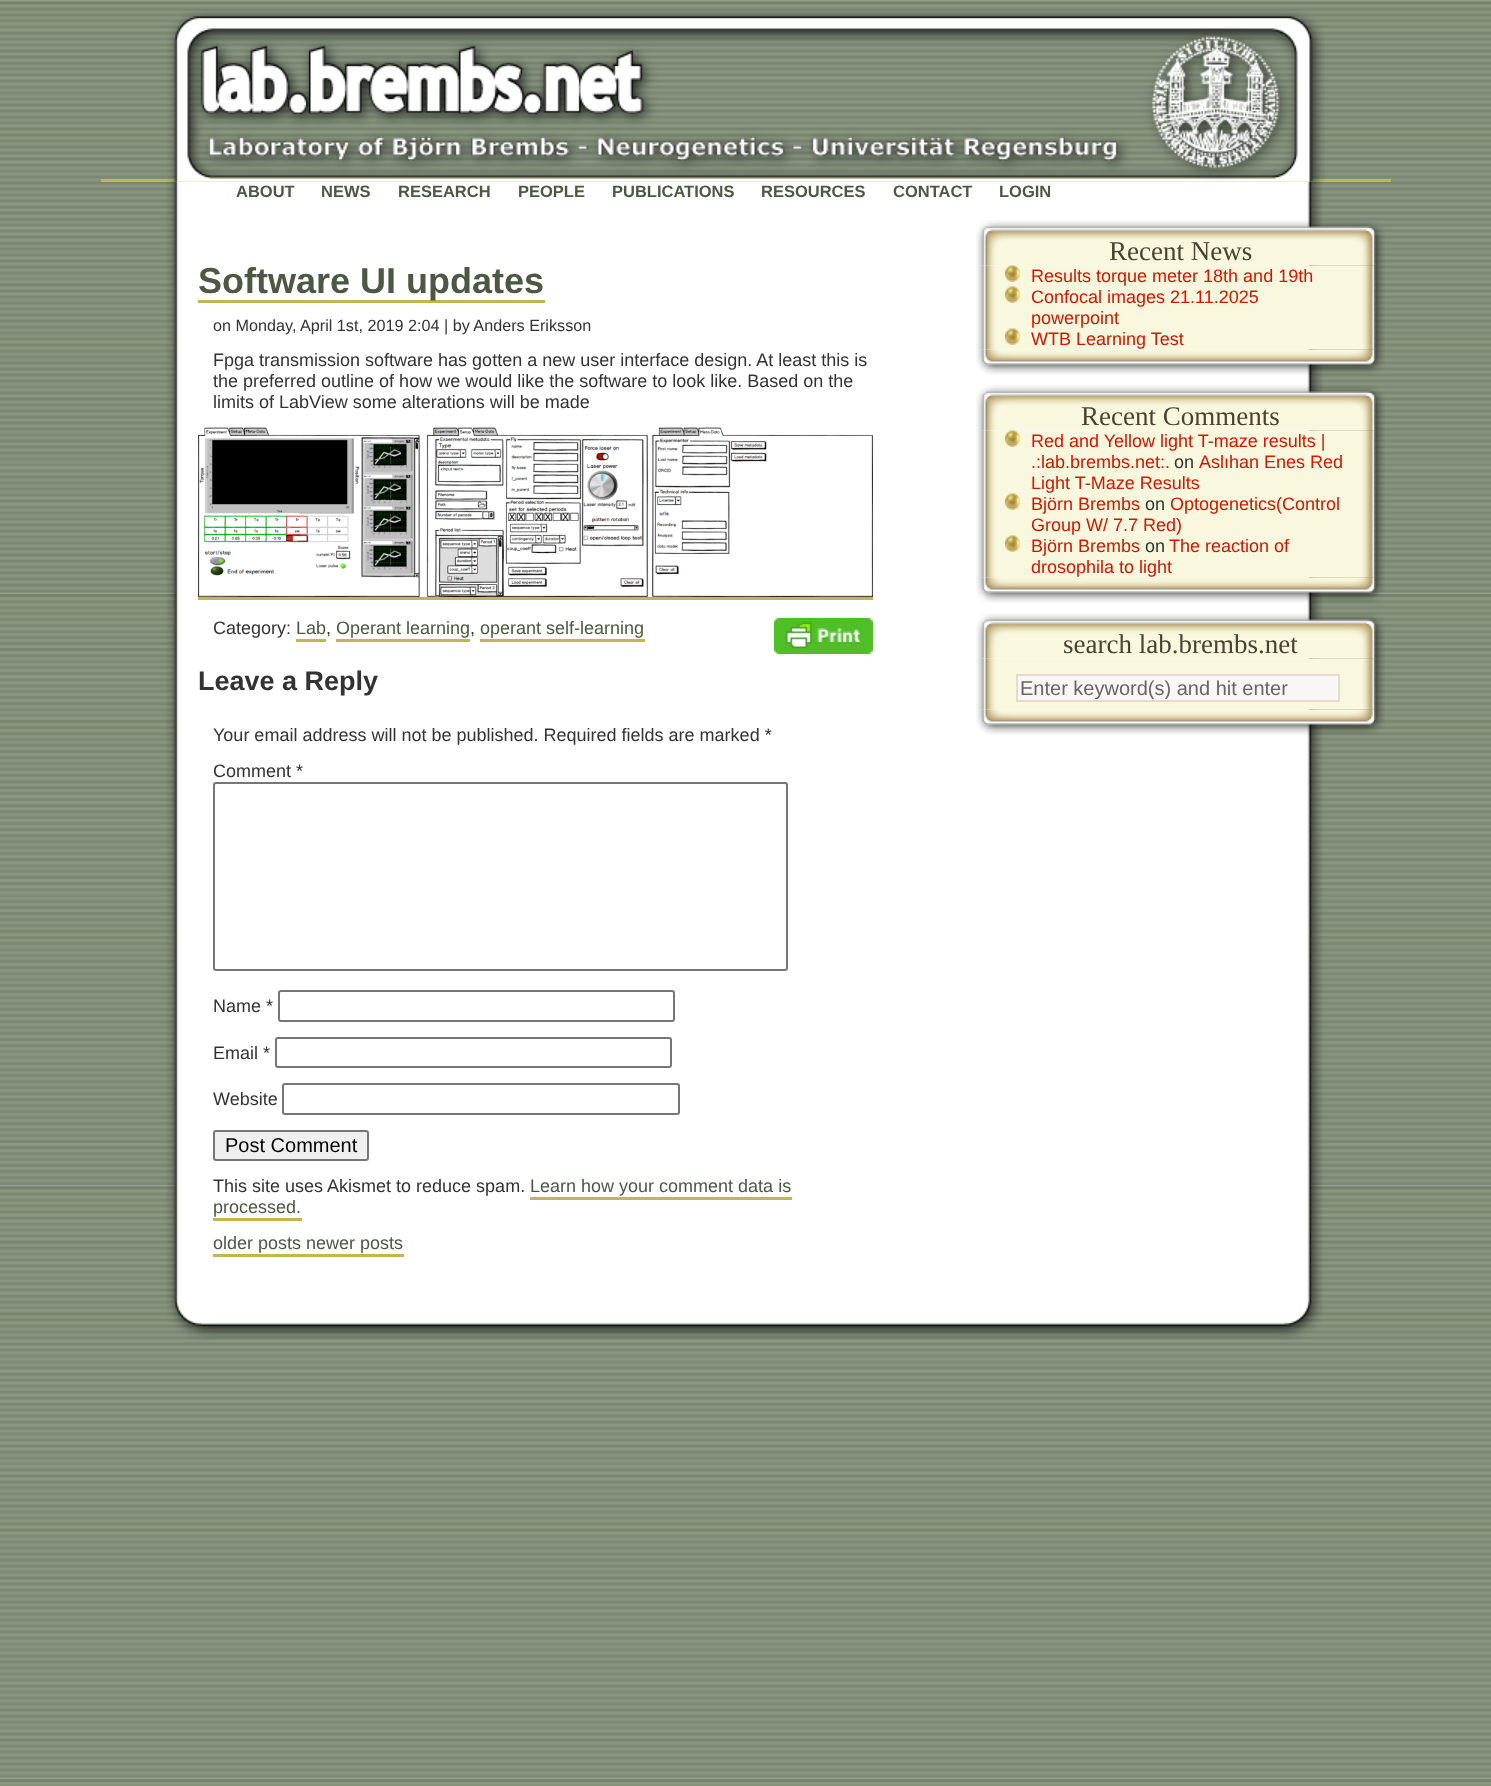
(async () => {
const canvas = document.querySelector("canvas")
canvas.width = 1491
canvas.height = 1786
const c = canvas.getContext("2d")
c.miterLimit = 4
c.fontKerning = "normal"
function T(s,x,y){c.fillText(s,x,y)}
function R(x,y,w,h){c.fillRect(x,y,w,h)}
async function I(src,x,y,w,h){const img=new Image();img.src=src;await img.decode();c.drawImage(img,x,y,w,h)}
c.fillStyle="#fff"
R(0,0,1491,1786)
await I("1.png",0,0,1491,1786)
c.fillStyle="#c4b550"
R(101,179,1290,3)
await I("3.png",166,181,1157,1118)
await I("2.png",167,9,1158,173)
c.font="bold 16.5px Liberation Sans"
c.fillStyle="#4c5844"
T("ABOUT",236,197)
T("NEWS",321,197)
T("RESEARCH",398,197)
T("PEOPLE",518,197)
T("PUBLICATIONS",612,197)
T("RESOURCES",761,197)
T("CONTACT",893,197)
T("LOGIN",999,197)
c.fillStyle="#c4b550"
R(198,300,347,3)
c.font="bold 36px Liberation Sans"
c.fillStyle="#4c5844"
T("Software UI updates",198,293)
c.font="16.2px Liberation Sans"
c.fillStyle="#333"
T("on Monday, April 1st, 2019 2:04 | by Anders Eriksson",213,331)
c.font="18px Liberation Sans"
T("Fpga transmission software has gotten a new user interface design. At least this is",213,366)
T("the preferred outline of how we would like the software to look like. Based on the",213,387)
T("limits of LabView some alterations will be made",213,408)
c.fillStyle="#c4b550"
R(198,597,675,3)
await I("4.png",198,427,675,170)
await I("5.png",774,618,99,36)
c.fillStyle="#333"
T("Category:",213,634)
c.fillStyle="#4c5844"
T("Lab",296,634)
c.fillStyle="#c4b550"
R(296,639,30,3)
c.fillStyle="#333"
T(",",326,634)
c.fillStyle="#4c5844"
T("Operant learning",336,634)
c.fillStyle="#c4b550"
R(336,639,134,3)
c.fillStyle="#333"
T(",",470,634)
c.fillStyle="#4c5844"
T("operant self-learning",480,634)
c.fillStyle="#c4b550"
R(480,639,165,3)
c.font="bold 27px Liberation Sans"
c.fillStyle="#333"
T("Leave a Reply",198,690)
c.font="18px Liberation Sans"
T("Your email address will not be published. Required fields are marked *",213,741)
T("Comment *",213,777)
c.beginPath()
c.roundRect(214,783,573,187,2)
c.strokeStyle="#767676"
c.lineWidth=2
c.stroke()
T("Name *",213,1012)
c.beginPath()
c.roundRect(279,991,395,30,2)
c.stroke()
T("Email *",213,1059)
c.beginPath()
c.roundRect(276,1038,395,29,2)
c.stroke()
T("Website",213,1105)
c.beginPath()
c.roundRect(283,1084,396,30,2)
c.stroke()
c.fillStyle="#efefef"
c.beginPath()
c.roundRect(214,1131,154,29,2)
c.fill()
c.stroke()
c.font="20px Liberation Sans"
c.fillStyle="#000"
T("Post Comment",225,1152)
c.font="18px Liberation Sans"
c.fillStyle="#333"
T("This site uses Akismet to reduce spam.",213,1192)
c.fillStyle="#4c5844"
T("Learn how your comment data is",530,1192)
c.fillStyle="#c4b550"
R(530,1197,262,3)
c.fillStyle="#4c5844"
T("processed.",213,1213)
c.fillStyle="#c4b550"
R(213,1218,89,3)
c.fillStyle="#4c5844"
T("older posts newer posts",213,1249)
c.fillStyle="#c4b550"
R(213,1254,191,3)
await I("6.png",976,220,409,46)
c.font="27px Liberation Serif"
c.fillStyle="#4a4131"
T("Recent News",1109,260)
await I("7.png",976,265,409,85)
await I("8.png",1005,265,15,17)
c.font="18px Liberation Sans"
c.fillStyle="#d21600"
T("Results torque meter 18th and 19th",1031,282)
await I("9.png",1005,286,15,17)
T("Confocal images 21.11.2025",1031,303)
T("powerpoint",1031,324)
await I("9.png",1005,328,15,17)
T("WTB Learning Test",1031,345)
await I("10.png",976,349,409,26)
await I("11.png",976,385,409,46)
c.font="27px Liberation Serif"
c.fillStyle="#4a4131"
T("Recent Comments",1081,425)
await I("12.png",976,430,409,148)
await I("8.png",1005,430,15,17)
c.font="18px Liberation Sans"
c.fillStyle="#d21600"
T("Red and Yellow light T-maze results |",1031,447)
T(".:lab.brembs.net:.",1031,468)
c.fillStyle="#333"
T("on",1174,468)
c.fillStyle="#d21600"
T("Aslıhan Enes Red",1199,468)
T("Light T-Maze Results",1031,489)
await I("9.png",1005,493,15,17)
T("Björn Brembs",1031,510)
c.fillStyle="#333"
T("on",1145,510)
c.fillStyle="#d21600"
T("Optogenetics(Control",1170,510)
T("Group W/ 7.7 Red)",1031,531)
await I("9.png",1005,535,15,17)
T("Björn Brembs",1031,552)
c.fillStyle="#333"
T("on",1145,552)
c.fillStyle="#d21600"
T("The reaction of",1169,552)
T("drosophila to light",1031,573)
await I("13.png",976,577,409,26)
await I("14.png",976,613,409,46)
c.font="27px Liberation Serif"
c.fillStyle="#4a4131"
T("search lab.brembs.net",1063,653)
await I("15.png",976,658,409,52)
c.fillStyle="#faf6f6"
c.beginPath()
c.rect(1017,675,322,26)
c.fill()
c.strokeStyle="#e3dccb"
c.stroke()
c.save()
c.beginPath()
c.rect(1020,677,315,22)
c.clip()
c.font="20px Liberation Sans"
c.fillStyle="#666"
T("Enter keyword(s) and hit enter",1020,695)
c.restore()
await I("16.png",976,709,409,26)
await I("17.png",166,1299,1157,41)
})()
